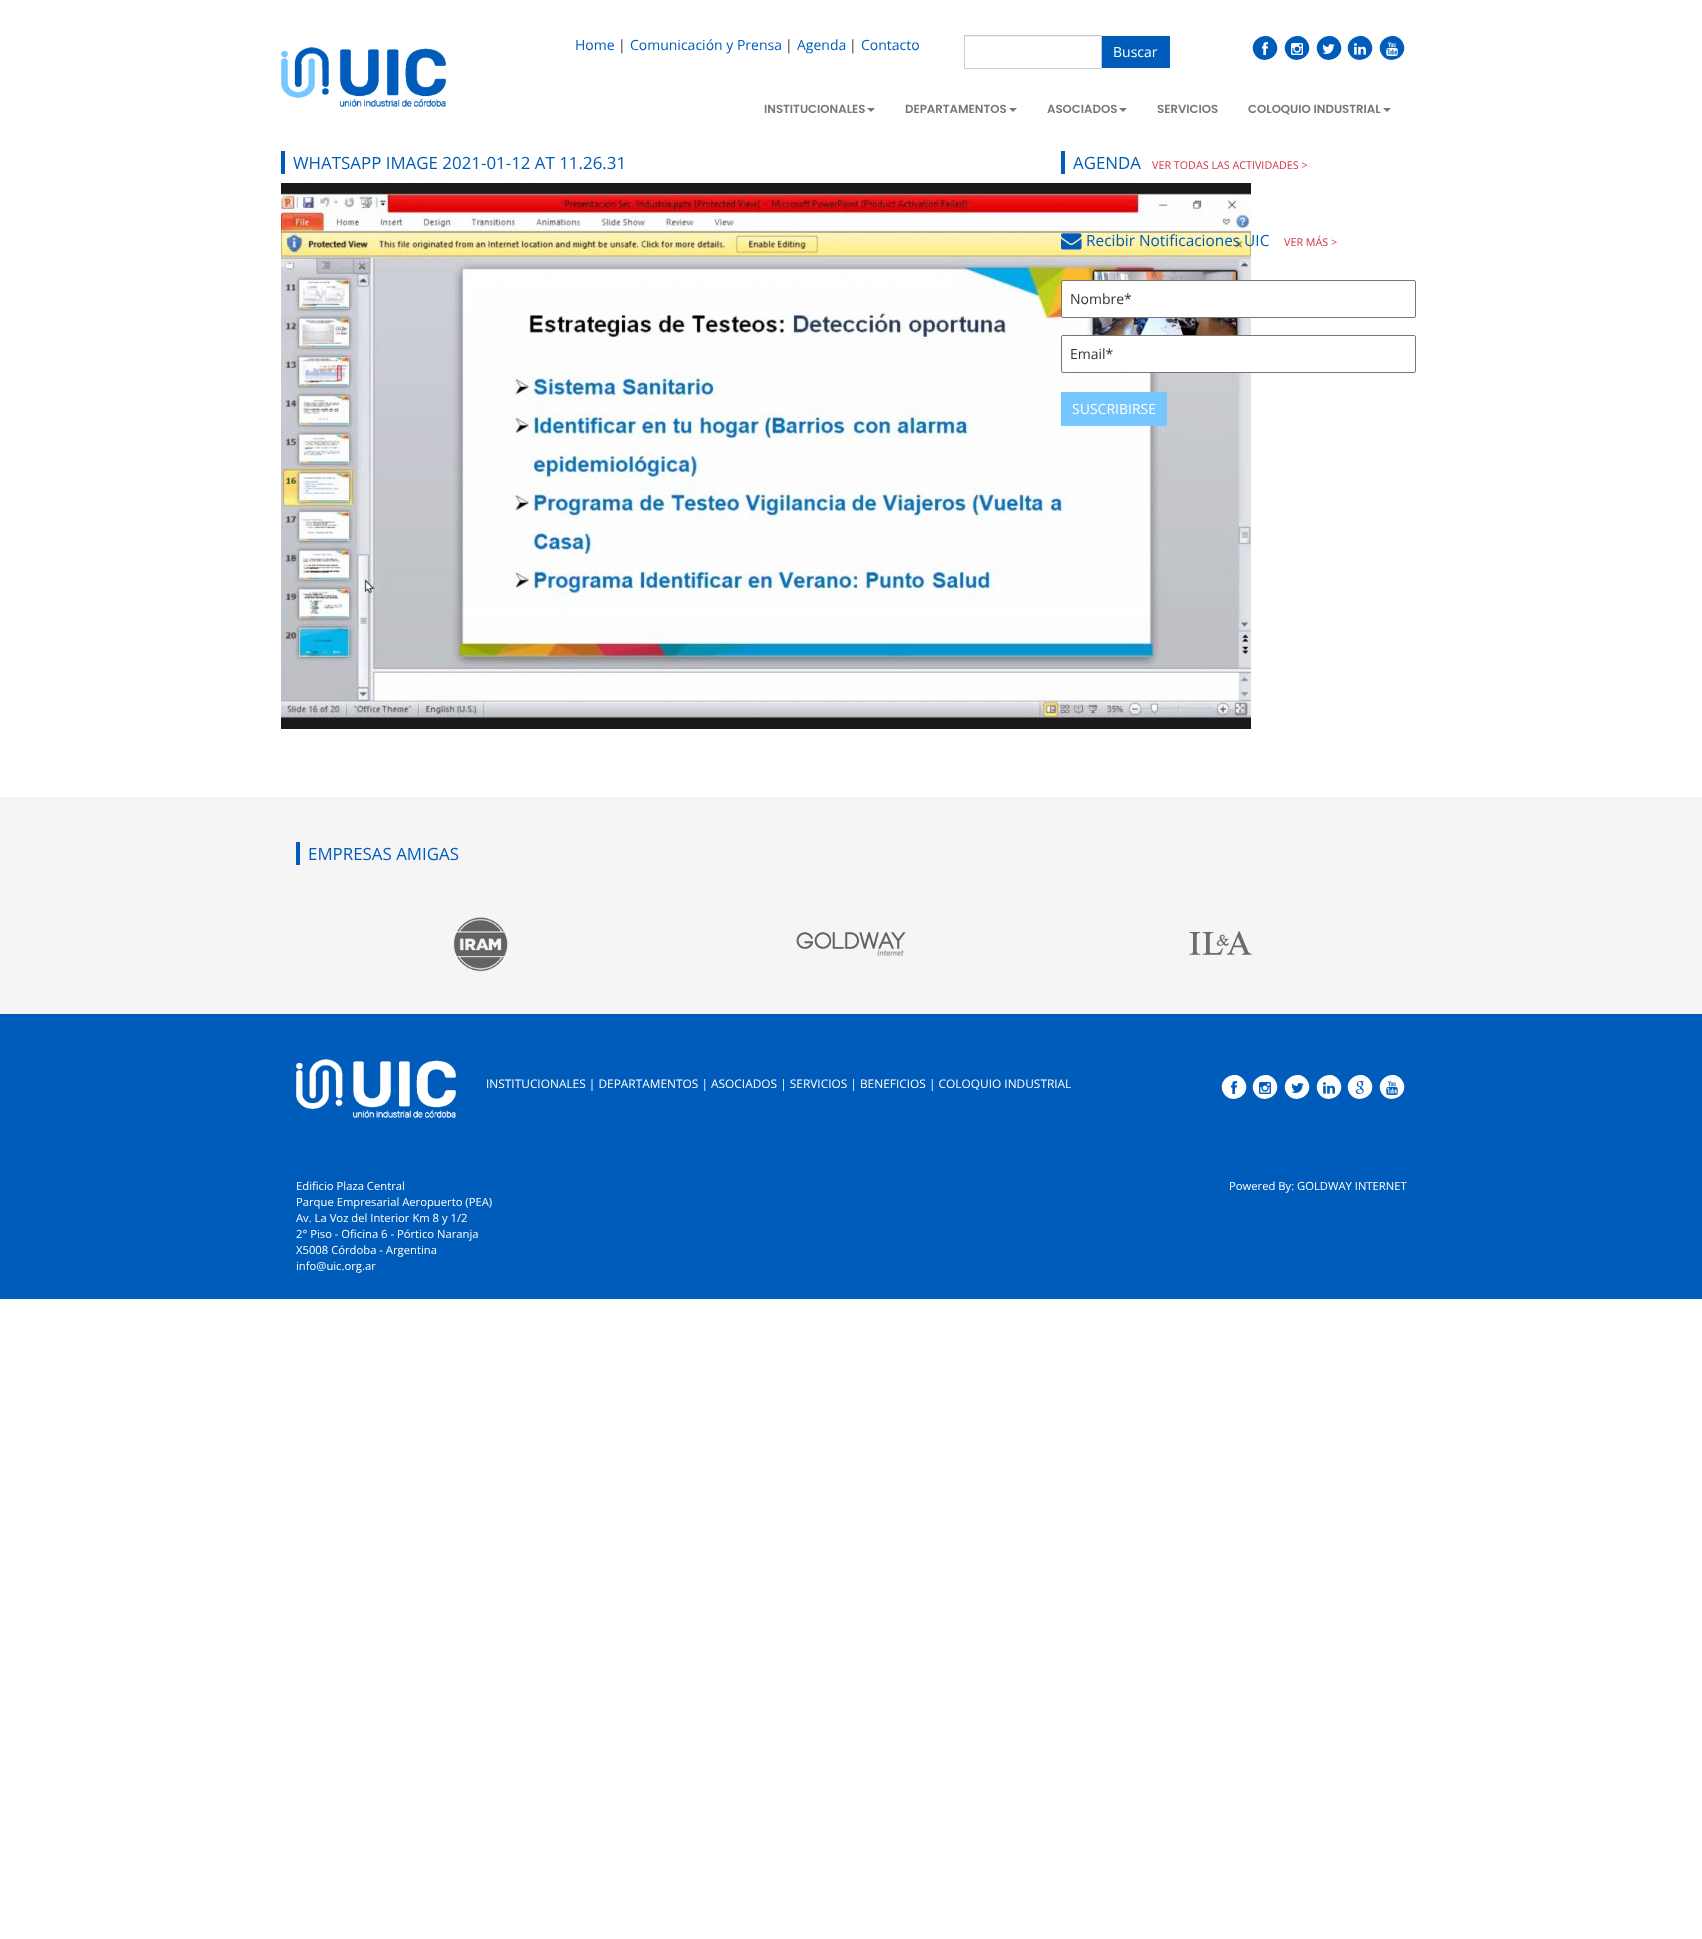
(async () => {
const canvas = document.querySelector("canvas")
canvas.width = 1702
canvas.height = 1939
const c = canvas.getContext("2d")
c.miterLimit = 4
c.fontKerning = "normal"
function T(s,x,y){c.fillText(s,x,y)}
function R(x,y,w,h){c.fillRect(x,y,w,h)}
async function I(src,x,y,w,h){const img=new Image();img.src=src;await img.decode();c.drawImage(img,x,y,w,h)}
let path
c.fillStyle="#fff"
R(0,0,1702,1939)
await I("1.png",281,47,165,60)
c.font="14px Open Sans"
c.fillStyle="#005cba"
T("Home",575,50)
c.fillStyle="#333"
T("|",618,50)
c.fillStyle="#005cba"
T("Comunicación y Prensa",630,50)
c.fillStyle="#333"
T("|",785,50)
c.fillStyle="#005cba"
T("Agenda",797,50)
c.fillStyle="#333"
T("|",849,50)
c.fillStyle="#005cba"
T("Contacto",861,50)
c.fillStyle="#ececec"
R(965,36,136,1)
c.strokeStyle="#ccc"
c.strokeRect(964.5,35.5,137,33)
c.fillStyle="#005cba"
R(1102,36,68,32)
c.fillStyle="#fff"
T("Buscar",1113,57)
c.fillStyle="#005cba"
path = new Path2D("M1275.5 42c8 13.5-13 25.5-21 12c-8-13.5 13-25.5 21-12z")
c.fill(path)
await I("2.png",1262,42,6,13)
path = new Path2D("M1307.5 42c8 13.5-13 25.5-21 12c-8-13.5 13-25.5 21-12z")
c.fill(path)
await I("3.png",1291,43,12,12)
path = new Path2D("M1339.5 42c8 13.5-13 25.5-21 12c-8-13.5 13-25.5 21-12z")
c.fill(path)
await I("4.png",1322,44,13,10)
path = new Path2D("M1370.5 42c8 13.5-13 25.5-21 12c-8-13.5 13-25.5 21-12z")
c.fill(path)
await I("5.png",1354,43,12,12)
path = new Path2D("M1402.5 42c8 13.5-13 25.5-21 12c-8-13.5 13-25.5 21-12z")
c.fill(path)
await I("6.png",1386,42,12,14)
c.font="600 11.75px Poppins"
c.fillStyle="#777"
T("INSTITUCIONALES",764,113)
path = new Path2D("M867 108h8l-4 4z")
c.fill(path)
T("DEPARTAMENTOS",905,113)
path = new Path2D("M1009 108h8l-4 4z")
c.fill(path)
T("ASOCIADOS",1047,113)
path = new Path2D("M1119 108h8l-4 4z")
c.fill(path)
T("SERVICIOS",1157,113)
T("COLOQUIO INDUSTRIAL",1248,113)
path = new Path2D("M1383 108h8l-4 4z")
c.fill(path)
c.font="16.9px Open Sans"
c.fillStyle="#005cba"
T("WHATSAPP IMAGE 2021-01-12 AT 11.26.31",293,169)
R(281,151,4,23)
await I("7.png",281,183,970,546)
T("AGENDA",1073,169)
R(1061,151,4,23)
c.font="10.75px Open Sans"
c.fillStyle="#d3354e"
T("VER TODAS LAS ACTIVIDADES >",1152,169)
await I("8.png",1061,233,21,17)
c.font="15.4px Open Sans"
c.fillStyle="#005cba"
T("Recibir Notificaciones UIC",1086,246)
c.font="10.75px Open Sans"
c.fillStyle="#d3354e"
T("VER MÁS >",1284,246)
c.fillStyle="#fff"
c.beginPath()
c.roundRect(1061.5,280.5,354,37,1.5)
c.fill()
c.strokeStyle="#767676"
c.stroke()
c.font="14px Open Sans"
c.fillStyle="#333"
T("Nombre*",1070,304)
c.fillStyle="#fff"
c.beginPath()
c.roundRect(1061.5,335.5,354,37,1.5)
c.fill()
c.stroke()
c.fillStyle="#333"
T("Email*",1070,359)
c.fillStyle="#76c7ff"
R(1061,392,106,34)
c.fillStyle="#fff"
T("SUSCRIBIRSE",1072,414)
c.fillStyle="#f5f5f5"
R(0,797,1702,217)
c.font="16.9px Open Sans"
c.fillStyle="#005cba"
T("EMPRESAS AMIGAS",308,860)
R(296,842,4,23)
await I("9.png",453,917,55,55)
await I("10.png",796,932,110,24)
await I("11.png",1189,931,63,24)
R(0,1014,1702,285)
await I("12.png",296,1059,160,59)
c.font="11.9px Open Sans"
c.fillStyle="#fff"
T("INSTITUCIONALES | DEPARTAMENTOS | ASOCIADOS | SERVICIOS | BENEFICIOS | COLOQUIO INDUSTRIAL",486,1088)
path = new Path2D("M1244.5 1081c8 13.5-13 25.5-21 12c-8-13.5 13-25.5 21-12z")
c.fill(path)
await I("13.png",1231,1081,6,13)
path = new Path2D("M1275.5 1081c8 13.5-13 25.5-21 12c-8-13.5 13-25.5 21-12z")
c.fill(path)
await I("14.png",1259,1082,12,12)
path = new Path2D("M1307.5 1081c8 13.5-13 25.5-21 12c-8-13.5 13-25.5 21-12z")
c.fill(path)
await I("15.png",1291,1083,13,10)
path = new Path2D("M1339.5 1081c8 13.5-13 25.5-21 12c-8-13.5 13-25.5 21-12z")
c.fill(path)
await I("16.png",1323,1082,12,12)
path = new Path2D("M1370.5 1081c8 13.5-13 25.5-21 12c-8-13.5 13-25.5 21-12z")
c.fill(path)
await I("17.png",1355,1081,9,13)
path = new Path2D("M1402.5 1081c8 13.5-13 25.5-21 12c-8-13.5 13-25.5 21-12z")
c.fill(path)
await I("18.png",1386,1081,12,14)
c.font="11.25px Open Sans"
T("Edificio Plaza Central",296,1190)
T("Parque Empresarial Aeropuerto (PEA)",296,1206)
T("Av. La Voz del Interior Km 8 y 1/2",296,1222)
T("2° Piso - Oficina 6 - Pórtico Naranja",296,1238)
T("X5008 Córdoba - Argentina",296,1254)
T("info@uic.org.ar",296,1270)
T("Powered By: GOLDWAY INTERNET",1229,1190)
})()
